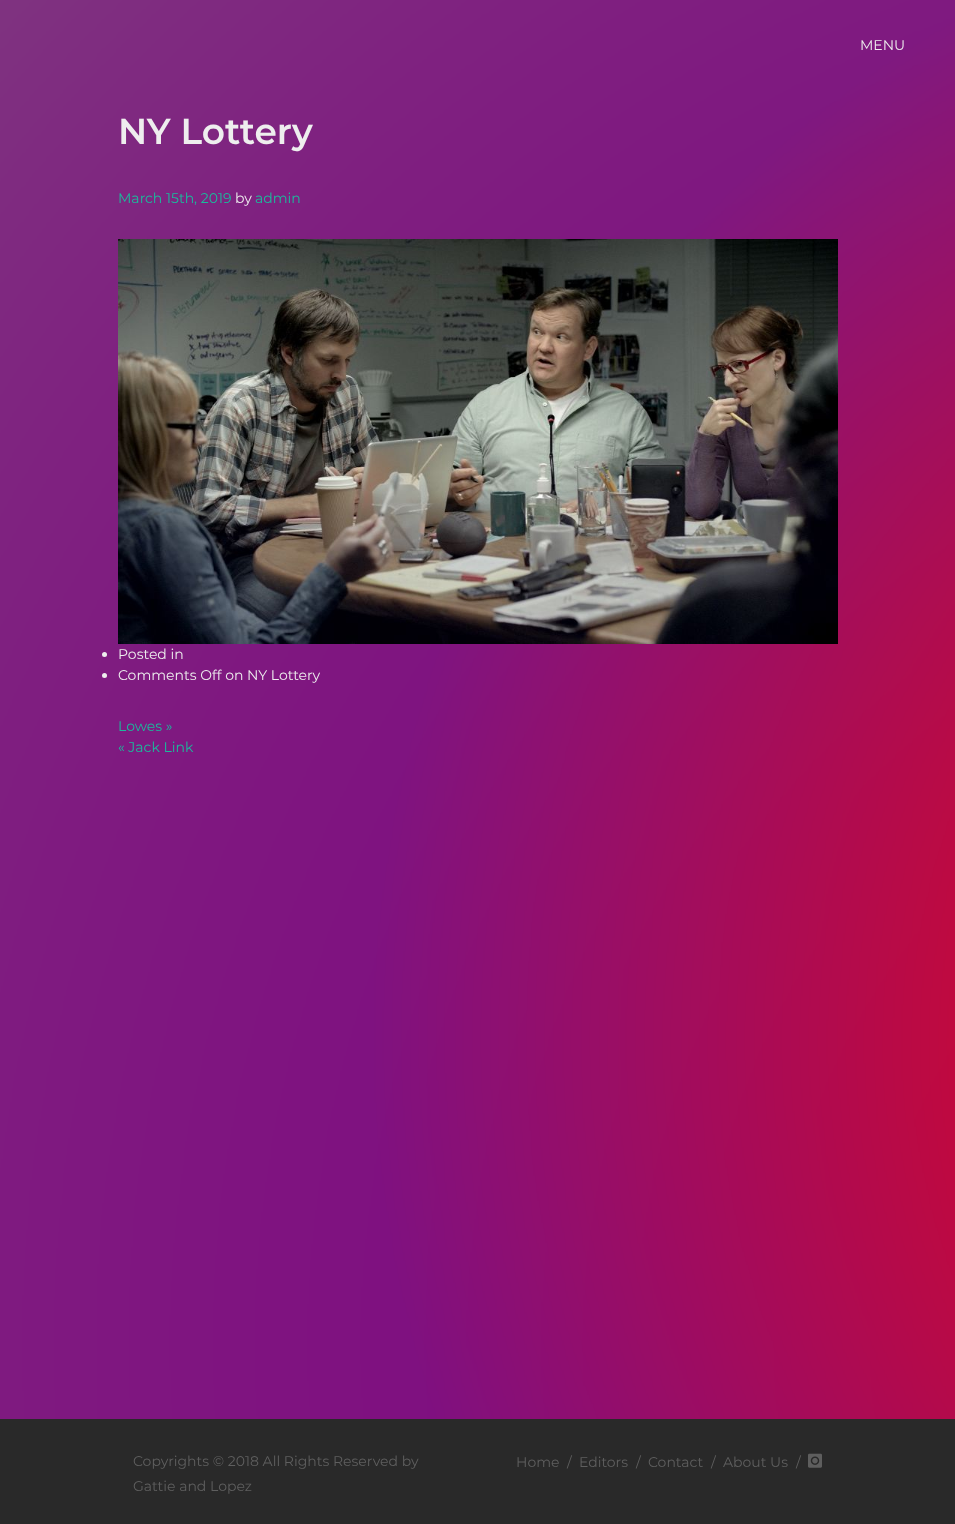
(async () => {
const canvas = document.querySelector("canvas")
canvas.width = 955
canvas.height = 1524
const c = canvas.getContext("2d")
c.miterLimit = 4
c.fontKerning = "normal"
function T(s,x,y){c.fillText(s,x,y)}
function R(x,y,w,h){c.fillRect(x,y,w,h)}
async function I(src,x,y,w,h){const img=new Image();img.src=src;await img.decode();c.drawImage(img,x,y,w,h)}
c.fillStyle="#fff"
R(0,0,955,1524)
await I("1.png",0,0,955,1419)
c.font="14px Montserrat"
c.fillStyle="#eee"
T("MENU",860,50)
c.font="600 36px Montserrat"
T("NY Lottery",118,144)
c.font="14px Montserrat"
c.fillStyle="#1abc9c"
T("March 15th, 2019",118,203)
c.fillStyle="#eee"
T("by",235,203)
c.fillStyle="#1abc9c"
T("admin",255,203)
await I("2.png",118,239,720,405)
c.fillStyle="#eee"
c.beginPath()
c.arc(104.5,654.5,2.5,0,7)
c.fill()
T("Posted in",118,659)
c.beginPath()
c.arc(104.5,675.5,2.5,0,7)
c.fill()
T("Comments Off on NY Lottery",118,680)
c.fillStyle="#1abc9c"
T("Lowes »",118,731)
T("« Jack Link",118,752)
c.fillStyle="#292929"
R(0,1419,955,105)
c.fillStyle="#5f5f5f"
T("Copyrights © 2018 All Rights Reserved by",133,1466)
T("Gattie and Lopez",133,1491)
T("Home",516,1467)
T("/",567,1467)
T("Editors",579,1467)
T("/",636,1467)
T("Contact",648,1467)
T("/",711,1467)
T("About Us",723,1467)
T("/",796,1467)
await I("3.png",808,1453,14,15)
})()
